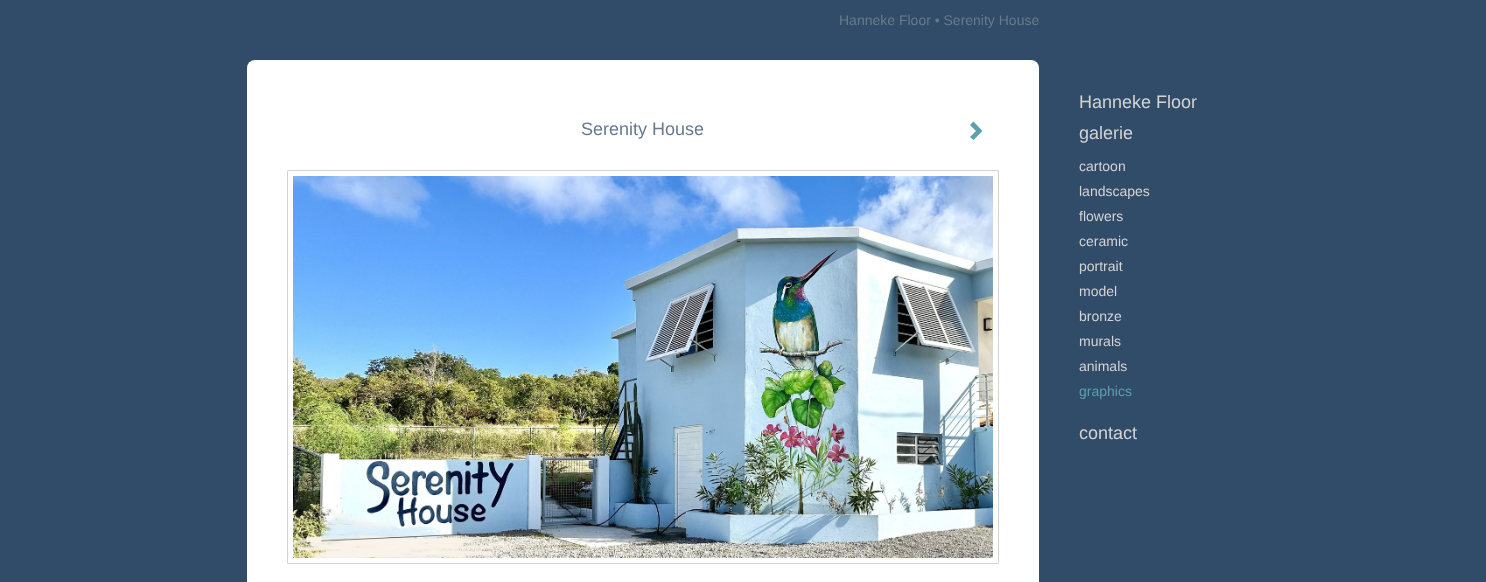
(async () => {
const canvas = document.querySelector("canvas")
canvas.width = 1486
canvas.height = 582
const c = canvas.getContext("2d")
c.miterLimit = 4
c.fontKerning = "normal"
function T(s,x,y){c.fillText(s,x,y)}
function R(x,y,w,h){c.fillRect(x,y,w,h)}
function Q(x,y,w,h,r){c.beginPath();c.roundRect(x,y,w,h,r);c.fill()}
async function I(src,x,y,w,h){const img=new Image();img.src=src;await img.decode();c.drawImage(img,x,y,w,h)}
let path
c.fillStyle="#314c68"
R(0,0,1486,582)
c.font="14px Liberation Sans"
c.fillStyle="#687a8d"
T("Hanneke Floor • Serenity House",839,25)
c.fillStyle="#fff"
Q(247,60,792,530,8)
c.font="18px Liberation Sans"
c.fillStyle="#687a8d"
T("Serenity House",581,135)
c.fillStyle="#5ba1ac"
path = new Path2D("M982.5 131l-9 9l-3.5-3l6-6l-6-6l3.5-3.5z")
c.fill(path)
c.beginPath()
c.roundRect(287.5,170.5,711,393,.5)
c.strokeStyle="#d3d3d3"
c.stroke()
await I("1.png",293,176,700,382)
c.fillStyle="#d3d3d3"
T("Hanneke Floor",1079,108)
T("galerie",1079,139)
c.font="14px Liberation Sans"
T("cartoon",1079,171)
T("landscapes",1079,196)
T("flowers",1079,221)
T("ceramic",1079,246)
T("portrait",1079,271)
T("model",1079,296)
T("bronze",1079,321)
T("murals",1079,346)
T("animals",1079,371)
c.fillStyle="#5ba1ac"
T("graphics",1079,396)
c.font="18px Liberation Sans"
c.fillStyle="#d3d3d3"
T("contact",1079,439)
})()
